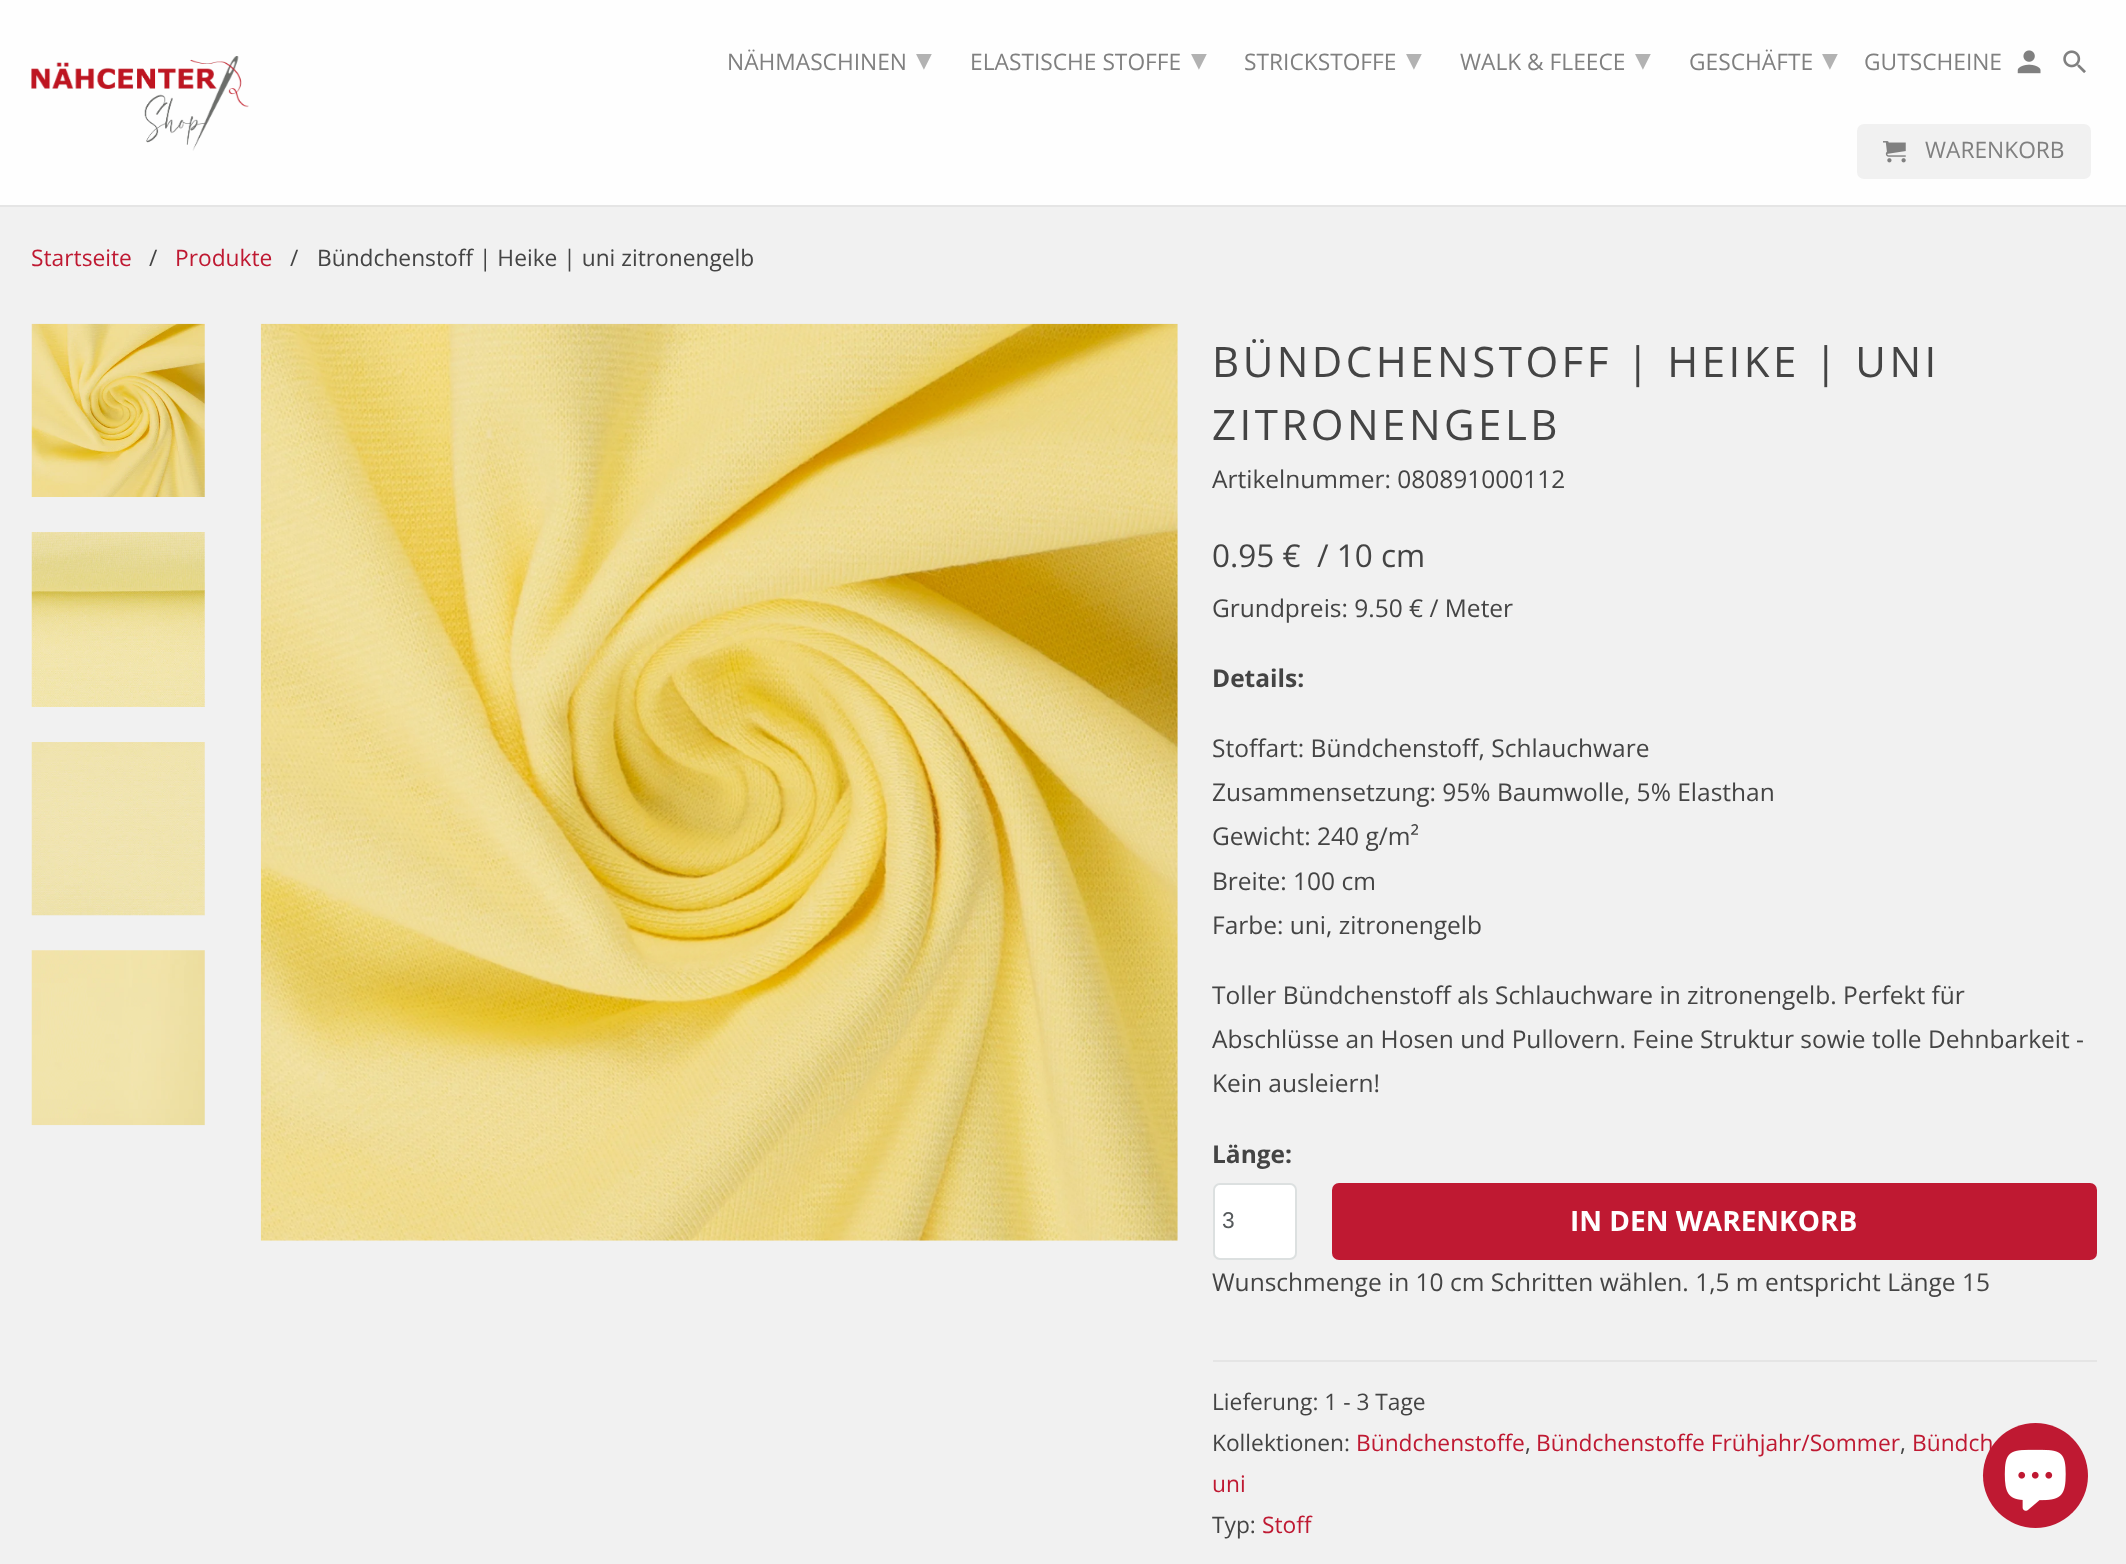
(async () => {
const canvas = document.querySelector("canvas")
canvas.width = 2126
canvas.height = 1564
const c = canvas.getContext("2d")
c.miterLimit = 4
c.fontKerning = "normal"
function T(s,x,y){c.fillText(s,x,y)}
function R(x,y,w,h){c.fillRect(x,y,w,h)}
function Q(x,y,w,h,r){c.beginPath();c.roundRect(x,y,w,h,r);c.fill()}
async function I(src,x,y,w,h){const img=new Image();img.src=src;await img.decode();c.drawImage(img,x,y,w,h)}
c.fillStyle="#f1f1f1"
R(0,0,2126,1564)
c.fillStyle="#fefefe"
R(0,0,2126,205)
c.fillStyle="#e5e5e5"
R(0,205,2126,2)
await I("1.png",31,56,218,95)
c.font="22.75px Open Sans"
c.fillStyle="#808080"
T("NÄHMASCHINEN",727,70)
c.font="31.5px DejaVu Sans"
c.fillStyle="#b2b2b2"
T("▾",916,70)
c.font="22.75px Open Sans"
c.fillStyle="#808080"
T("ELASTISCHE STOFFE",970,70)
c.font="31.5px DejaVu Sans"
c.fillStyle="#b2b2b2"
T("▾",1191,70)
c.font="22.75px Open Sans"
c.fillStyle="#808080"
T("STRICKSTOFFE",1244,70)
c.font="31.5px DejaVu Sans"
c.fillStyle="#b2b2b2"
T("▾",1406,70)
c.font="22.75px Open Sans"
c.fillStyle="#808080"
T("WALK & FLEECE",1460,70)
c.font="31.5px DejaVu Sans"
c.fillStyle="#b2b2b2"
T("▾",1635,70)
c.font="22.75px Open Sans"
c.fillStyle="#808080"
T("GESCHÄFTE",1689,70)
c.font="31.5px DejaVu Sans"
c.fillStyle="#b2b2b2"
T("▾",1822,70)
c.font="22.75px Open Sans"
c.fillStyle="#808080"
T("GUTSCHEINE",1864,70)
await I("2.png",2017,50,24,24)
await I("3.png",2063,50,23,23)
c.fillStyle="#f1f1f1"
Q(1857,124,234,55,7)
await I("4.png",1883,141,23,22)
c.fillStyle="#808080"
T("WARENKORB",1925,158)
c.fillStyle="#bf1932"
T("Startseite",31,266)
c.fillStyle="#444"
T("/",149,266)
c.fillStyle="#bf1932"
T("Produkte",175,266)
c.fillStyle="#444"
T("/",290,266)
T("Bündchenstoff | Heike | uni zitronengelb",317,266)
await I("5.png",31,323,174,174)
await I("6.png",31,532,174,175)
await I("7.png",31,742,174,174)
await I("8.png",31,950,174,176)
await I("9.png",260,323,918,918)
c.letterSpacing="3.5px"
c.font="42px Open Sans"
T("BÜNDCHENSTOFF | HEIKE | UNI",1212,377)
T("ZITRONENGELB",1212,440)
c.letterSpacing="0px"
c.font="24.5px Open Sans"
T("Artikelnummer: 080891000112",1212,488)
c.font="31.5px Open Sans"
T("0.95 €",1212,567)
T("/ 10 cm",1317,567)
c.font="24.5px Open Sans"
T("Grundpreis: 9.50 € / Meter",1212,617)
c.font="bold 24.5px Open Sans"
T("Details:",1212,687)
c.font="24.5px Open Sans"
T("Stoffart: Bündchenstoff, Schlauchware",1212,757)
T("Zusammensetzung: 95% Baumwolle, 5% Elasthan",1212,801)
T("Gewicht: 240 g/m²",1212,845)
T("Breite: 100 cm",1212,890)
T("Farbe: uni, zitronengelb",1212,934)
T("Toller Bündchenstoff als Schlauchware in zitronengelb. Perfekt für",1212,1004)
T("Abschlüsse an Hosen und Pullovern. Feine Struktur sowie tolle Dehnbarkeit -",1212,1048)
T("Kein ausleiern!",1212,1092)
c.font="bold 24.5px Open Sans"
T("Länge:",1212,1163)
c.fillStyle="#fff"
c.beginPath()
c.roundRect(1214,1184,82,75,6)
c.fill()
c.strokeStyle="#dce0e0"
c.lineWidth=2
c.stroke()
c.font="22.75px Liberation Sans"
c.fillStyle="#565a5c"
T("3",1222,1228)
c.fillStyle="#bf1932"
Q(1332,1183,765,77,7)
c.font="bold 28px Open Sans"
c.fillStyle="#fff"
T("IN DEN WARENKORB",1570,1231)
c.font="24.5px Open Sans"
c.fillStyle="#444"
T("Wunschmenge in 10 cm Schritten wählen. 1,5 m entspricht Länge 15",1212,1291)
c.fillStyle="#e5e5e5"
R(1213,1360,884,2)
c.font="22.75px Open Sans"
c.fillStyle="#444"
T("Lieferung: 1 - 3 Tage",1212,1410)
T("Kollektionen:",1212,1451)
c.fillStyle="#bf1932"
T("Bündchenstoffe",1356,1451)
c.fillStyle="#444"
T(",",1525,1451)
c.fillStyle="#bf1932"
T("Bündchenstoffe Frühjahr/Sommer",1536,1451)
c.fillStyle="#444"
T(",",1900,1451)
c.fillStyle="#bf1932"
T("Bündch",1912,1451)
T("uni",1212,1492)
c.fillStyle="#444"
T("Typ:",1212,1533)
c.fillStyle="#bf1932"
T("Stoff",1262,1533)
c.beginPath()
c.arc(2035.5,1475.5,52.5,0,7)
c.fill()
await I("10.png",2004,1449,62,62)
})()
